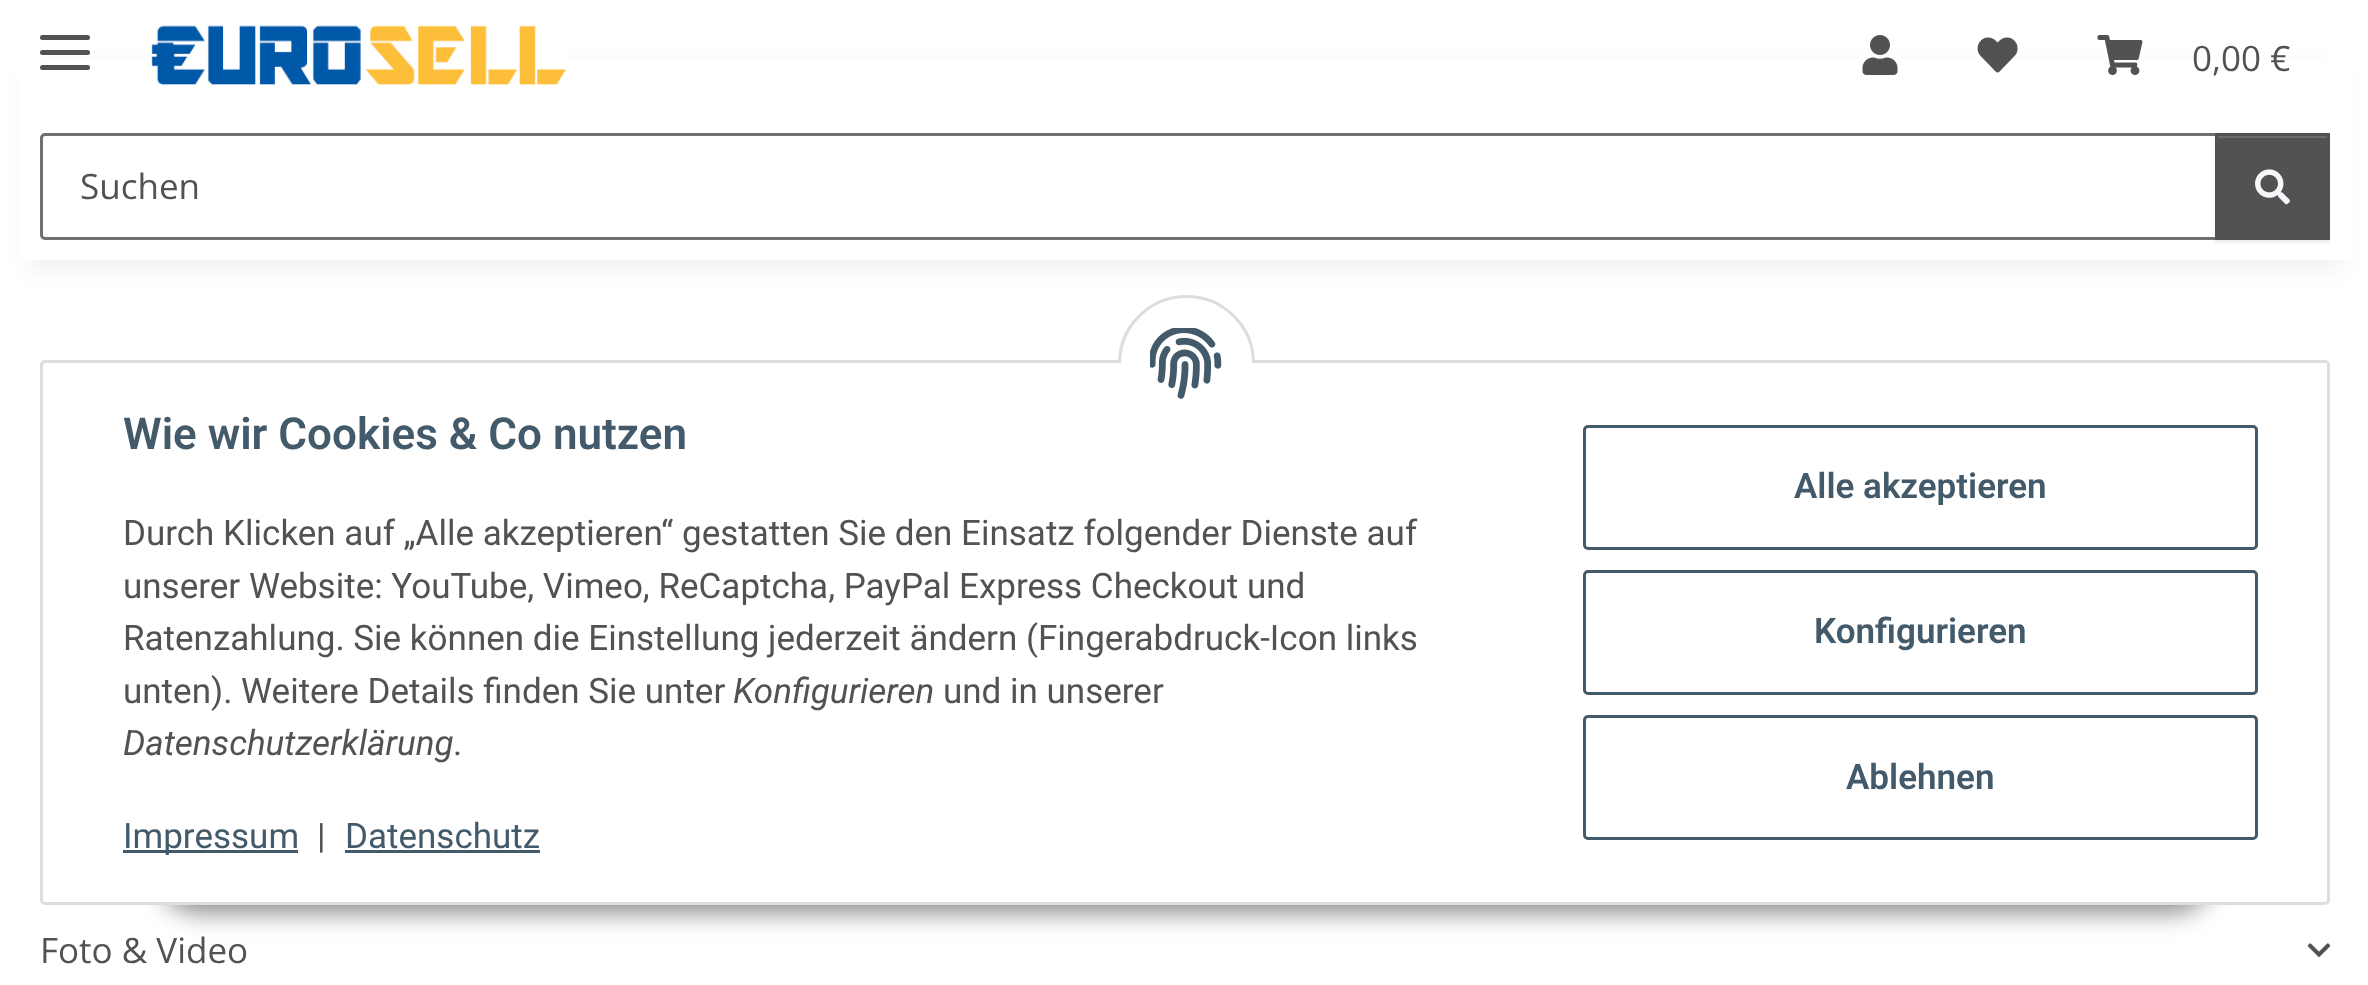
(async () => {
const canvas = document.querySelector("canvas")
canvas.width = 2368
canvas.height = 985
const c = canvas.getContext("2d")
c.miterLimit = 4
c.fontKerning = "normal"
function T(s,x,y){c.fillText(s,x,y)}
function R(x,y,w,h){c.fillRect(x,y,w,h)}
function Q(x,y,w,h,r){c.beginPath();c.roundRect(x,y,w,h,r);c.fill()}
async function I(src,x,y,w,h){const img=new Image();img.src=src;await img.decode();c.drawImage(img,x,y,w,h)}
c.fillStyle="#fff"
R(0,0,2368,985)
c.fillStyle="#0000000f"
c.filter="blur(11px)"
c.beginPath()
c.rect(30,70,2310,200)
c.fill()
c.filter="none"
c.fillStyle="#fff"
R(19,59,2332,201)
c.fillStyle="#525252"
Q(40,50,50,5,2.5)
Q(40,35,50,5,2.5)
Q(40,65,50,5,2.5)
await I("1.png",151,25,415,60)
await I("2.png",1862,35,36,40)
await I("3.png",1977,37,41,36)
await I("4.png",2097,35,46,40)
c.font="35px Open Sans"
T("0,00 €",2192,71)
c.beginPath()
c.roundRect(41.5,134.5,2175,104,[3.5,0,0,3.5])
c.strokeStyle="#707070"
c.lineWidth=3
c.stroke()
T("Suchen",80,199)
c.fillStyle="#00000012"
c.filter="blur(1px)"
c.beginPath()
c.rect(2215,135,115,108)
c.fill()
c.filter="none"
c.fillStyle="#525252"
R(2218,138,109,99)
c.fillStyle="#6c6c6c"
R(2218,136,110,2)
c.strokeStyle="#525252"
c.strokeRect(2216.5,134.5,112,104)
await I("5.png",2255,169,35,36)
c.fillStyle="#00000073"
c.filter="blur(12.5px)"
c.beginPath()
c.roundRect(158,833,2055,80,40)
c.fill()
c.filter="none"
c.fillStyle="#fff"
c.beginPath()
c.roundRect(41.5,361.5,2287,542,3.5)
c.fill()
c.strokeStyle="#ddd"
c.stroke()
c.beginPath()
c.roundRect(1119.5,296.5,134,135,67)
c.fill()
c.stroke()
R(1118,363,137,70)
await I("6.png",1150,328,72,71)
c.font="600 44px Roboto"
c.fillStyle="#435a6b"
T("Wie wir Cookies & Co nutzen",123,449)
c.font="35px Roboto"
c.fillStyle="#525252"
T("Durch Klicken auf „Alle akzeptieren“ gestatten Sie den Einsatz folgender Dienste auf",123,545)
T("unserer Website: YouTube, Vimeo, ReCaptcha, PayPal Express Checkout und",123,598)
T("Ratenzahlung. Sie können die Einstellung jederzeit ändern (Fingerabdruck-Icon links",123,650)
T("unten). Weitere Details finden Sie unter",123,703)
c.font="italic 35px Roboto"
T("Konfigurieren",733,703)
c.font="35px Roboto"
T("und in unserer",943,703)
c.font="italic 35px Roboto"
T("Datenschutzerklärung",123,755)
c.font="35px Roboto"
T(".",453,755)
c.fillStyle="#435a6b"
R(123,850,175,3)
T("Impressum",123,848)
c.fillStyle="#525252"
T("|",317,848)
c.fillStyle="#435a6b"
T("Datenschutz",345,848)
R(345,850,195,3)
c.beginPath()
c.roundRect(1584.5,426.5,672,122,3.5)
c.strokeStyle="#435a6b"
c.stroke()
c.font="600 35px Roboto"
T("Alle akzeptieren",1794,498)
c.beginPath()
c.roundRect(1584.5,571.5,672,122,3.5)
c.stroke()
T("Konfigurieren",1814,643)
c.beginPath()
c.roundRect(1584.5,716.5,672,122,3.5)
c.stroke()
T("Ablehnen",1846,789)
await I("7.png",2330,852,1,2)
c.font="35px Open Sans"
c.fillStyle="#525252"
T("Foto & Video",40,963)
await I("8.png",2307,943,24,14)
})()
